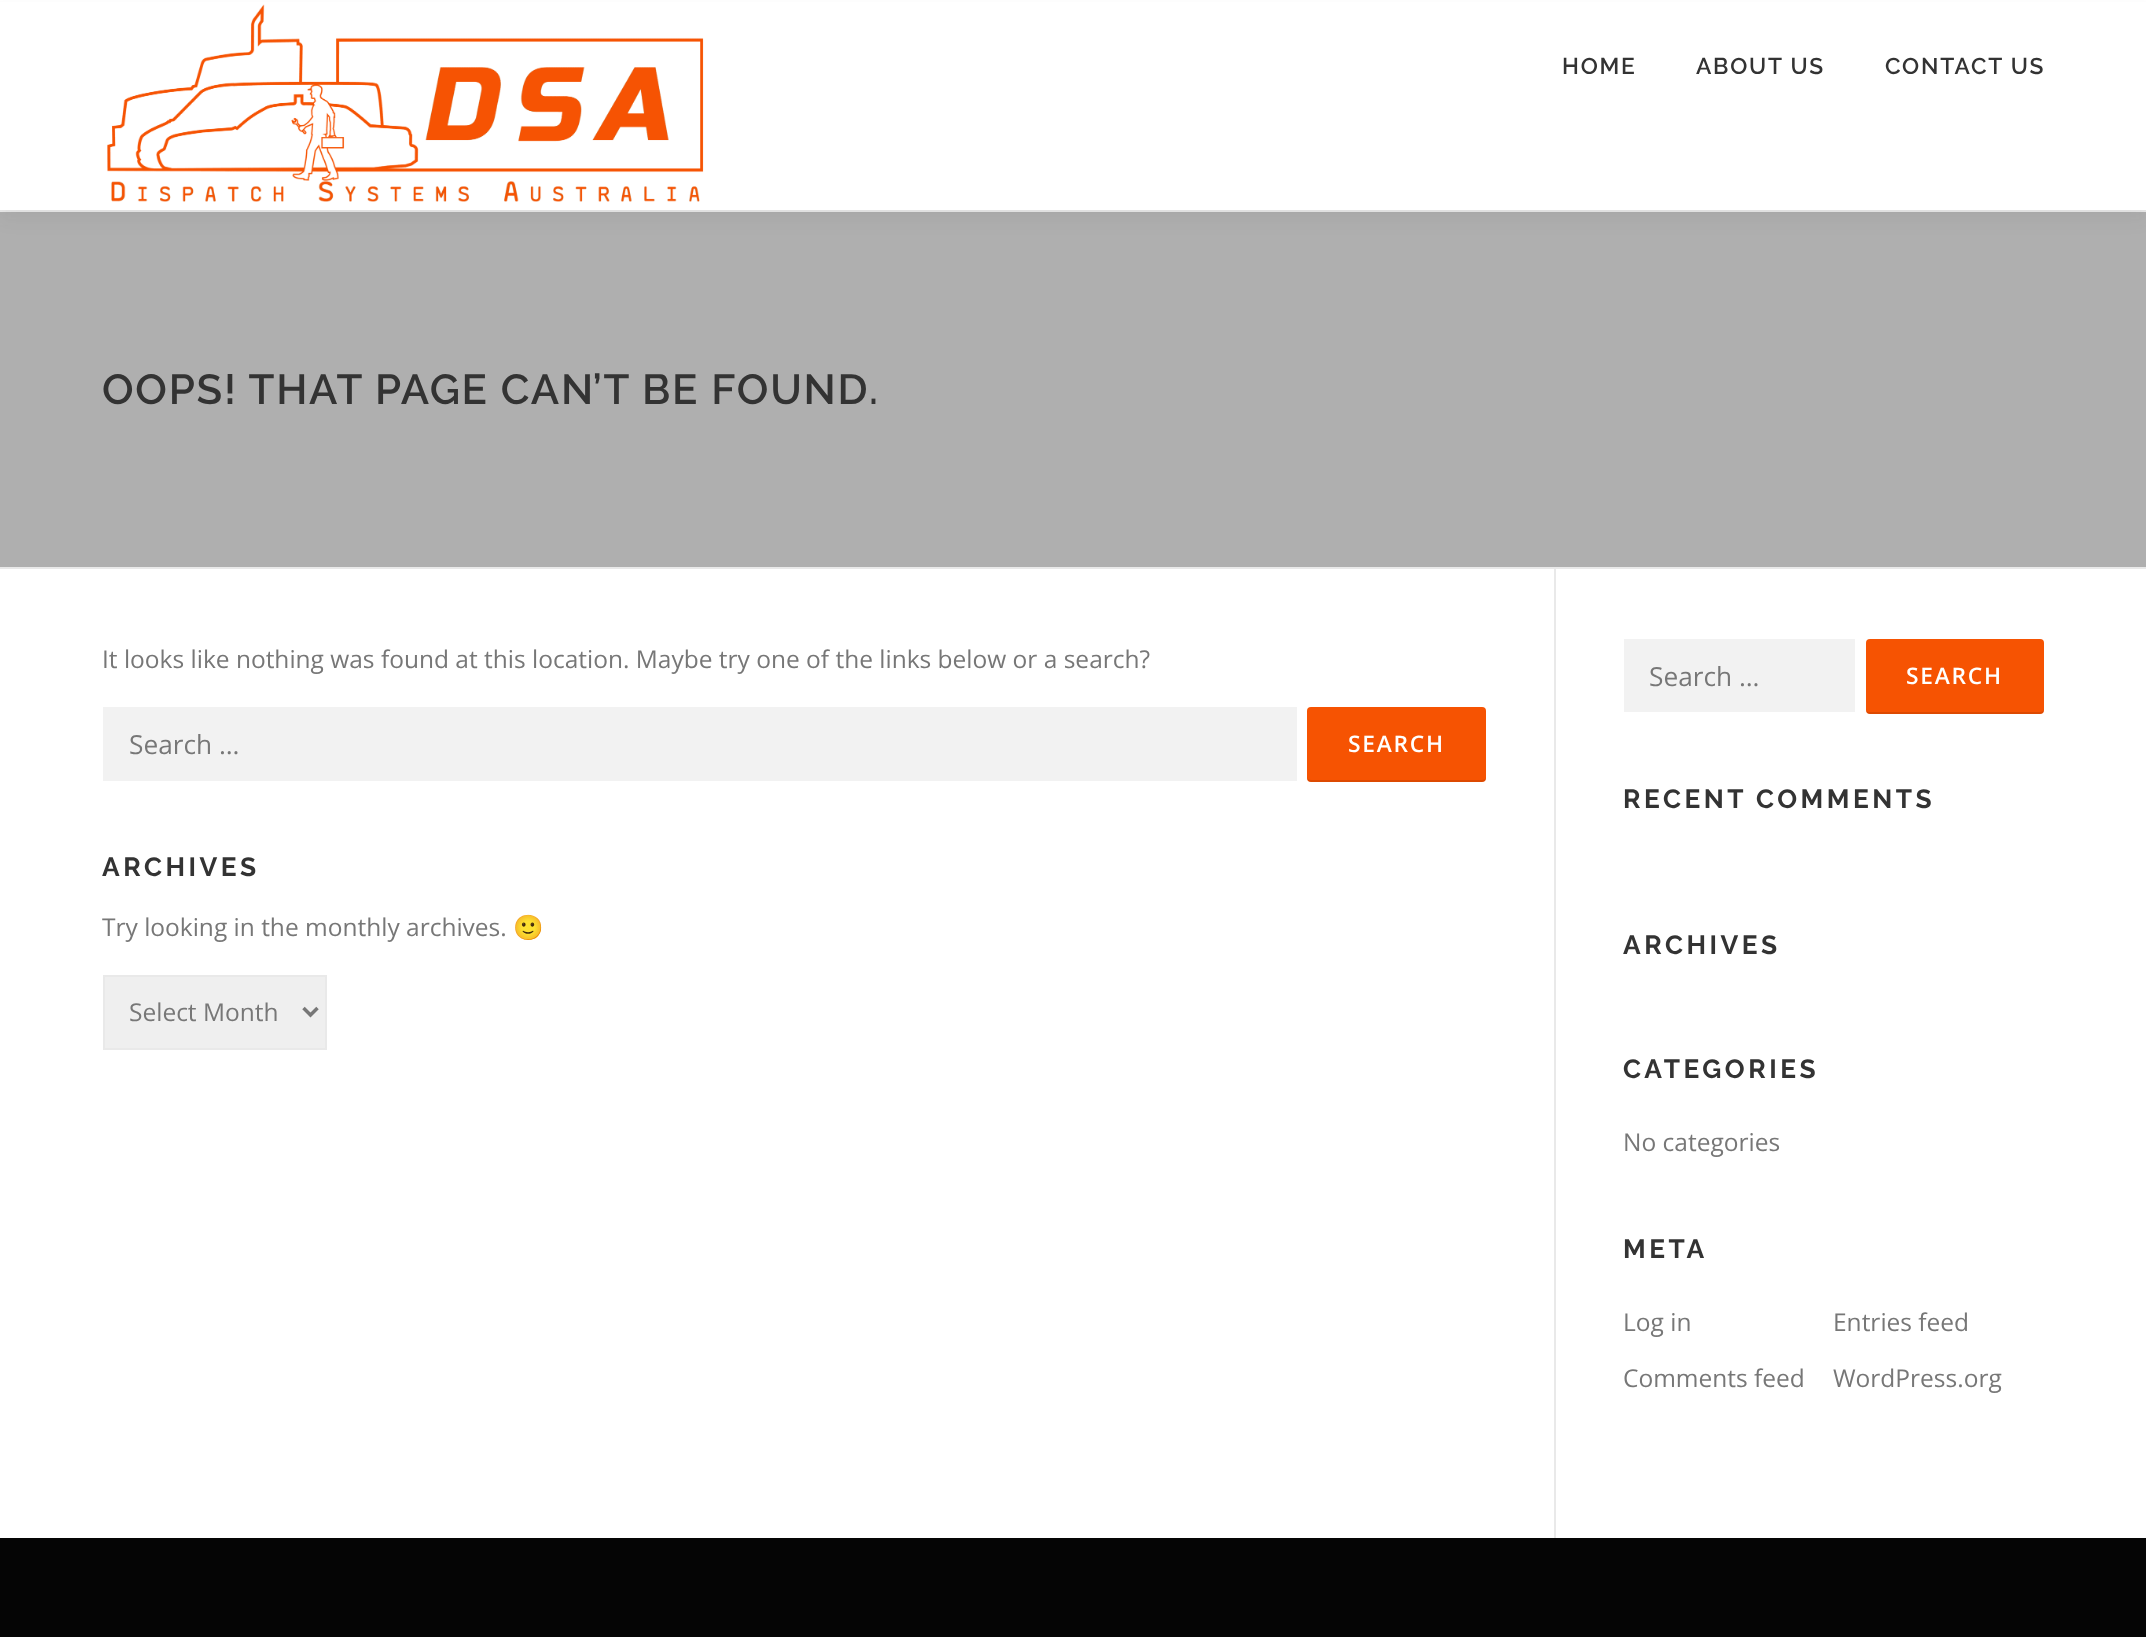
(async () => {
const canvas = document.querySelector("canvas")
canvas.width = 2146
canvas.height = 1637
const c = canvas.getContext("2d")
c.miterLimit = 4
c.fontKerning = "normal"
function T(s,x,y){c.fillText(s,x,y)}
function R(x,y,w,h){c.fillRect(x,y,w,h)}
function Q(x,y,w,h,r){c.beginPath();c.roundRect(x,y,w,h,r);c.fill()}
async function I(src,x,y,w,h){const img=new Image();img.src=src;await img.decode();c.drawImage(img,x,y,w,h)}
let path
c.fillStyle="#fff"
R(0,0,2146,1637)
c.fillStyle="#e9e9e9"
R(0,210,2146,2)
c.fillStyle="#afafaf"
R(0,212,2146,355)
c.fillStyle="#3232320f"
c.filter="blur(9px)"
c.beginPath()
c.rect(0,9,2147,210)
c.fill()
c.filter="none"
c.fillStyle="#fff"
R(0,2,2146,208)
await I("1.png",107,4,597,198)
c.letterSpacing="1.75px"
c.font="600 22.75px Raleway"
c.fillStyle="#333"
T("HOME",1562,74)
T("ABOUT US",1696,74)
T("CONTACT US",1885,74)
c.fillStyle="#e9e9e9"
R(0,567,2146,2)
c.font="600 42px Raleway"
c.fillStyle="#333"
T("OOPS! THAT PAGE CAN’T BE FOUND.",102,404)
c.letterSpacing="0px"
c.font="24.5px Open Sans"
c.fillStyle="#777"
T("It looks like nothing was found at this location. Maybe try one of the links below or a search?",102,668)
c.fillStyle="#f2f2f2"
R(103,707,1194,74)
c.font="26.25px Open Sans"
c.fillStyle="#777"
T("Search …",129,754)
c.fillStyle="#f65302"
Q(1307,707,179,75,4)
c.fillStyle="#0000001a"
path = new Path2D("M1307 777v1c0 2 2 4 4 4h171c2 0 4-2 4-4v-1c0 2-2 3-4 3h-171c-2 0-4-1-4-3z")
c.fill(path)
c.letterSpacing="1.75px"
c.font="600 22.75px Open Sans"
c.fillStyle="#fff"
T("SEARCH",1348,752)
c.letterSpacing="3.5px"
c.font="bold 26.25px Raleway"
c.fillStyle="#333"
T("ARCHIVES",102,876)
c.letterSpacing="0px"
c.font="24.5px Open Sans"
c.fillStyle="#777"
T("Try looking in the monthly archives.",102,936)
c.font="24.5px Noto Color Emoji"
T("🙂",513,936)
c.fillStyle="#efefef"
c.beginPath()
c.rect(104,976,222,73)
c.fill()
c.strokeStyle="#e9e9e9"
c.lineWidth=2
c.stroke()
path = new Path2D("M303.5 1008l7 7l7-7")
c.strokeStyle="#777"
c.lineWidth=3.5
c.stroke(path)
c.font="24.5px Open Sans"
c.fillStyle="#777"
T("Select Month",129,1021)
c.fillStyle="#e9e9e9"
R(1554,569,2,969)
c.fillStyle="#f2f2f2"
R(1624,639,231,73)
c.font="26.25px Open Sans"
c.fillStyle="#777"
T("Search …",1649,686)
c.fillStyle="#f65302"
Q(1866,639,178,75,4)
c.fillStyle="#0000001a"
path = new Path2D("M1866 709v1c0 2 2 4 4 4h170c2 0 4-2 4-4v-1c0 2-2 3-4 3h-171c-2 0-3-1-3-3z")
c.fill(path)
c.letterSpacing="1.75px"
c.font="600 22.75px Open Sans"
c.fillStyle="#fff"
T("SEARCH",1906,684)
c.letterSpacing="3.5px"
c.font="bold 26.25px Raleway"
c.fillStyle="#333"
T("RECENT COMMENTS",1623,808)
T("ARCHIVES",1623,954)
T("CATEGORIES",1623,1078)
c.letterSpacing="0px"
c.font="24.5px Open Sans"
c.fillStyle="#777"
T("No categories",1623,1151)
c.letterSpacing="3.5px"
c.font="bold 26.25px Raleway"
c.fillStyle="#333"
T("META",1623,1258)
c.letterSpacing="0px"
c.font="24.5px Open Sans"
c.fillStyle="#777"
T("Log in",1623,1331)
T("Entries feed",1833,1331)
T("Comments feed",1623,1387)
T("WordPress.org",1833,1387)
c.fillStyle="#050505"
R(0,1538,2146,99)
})()
